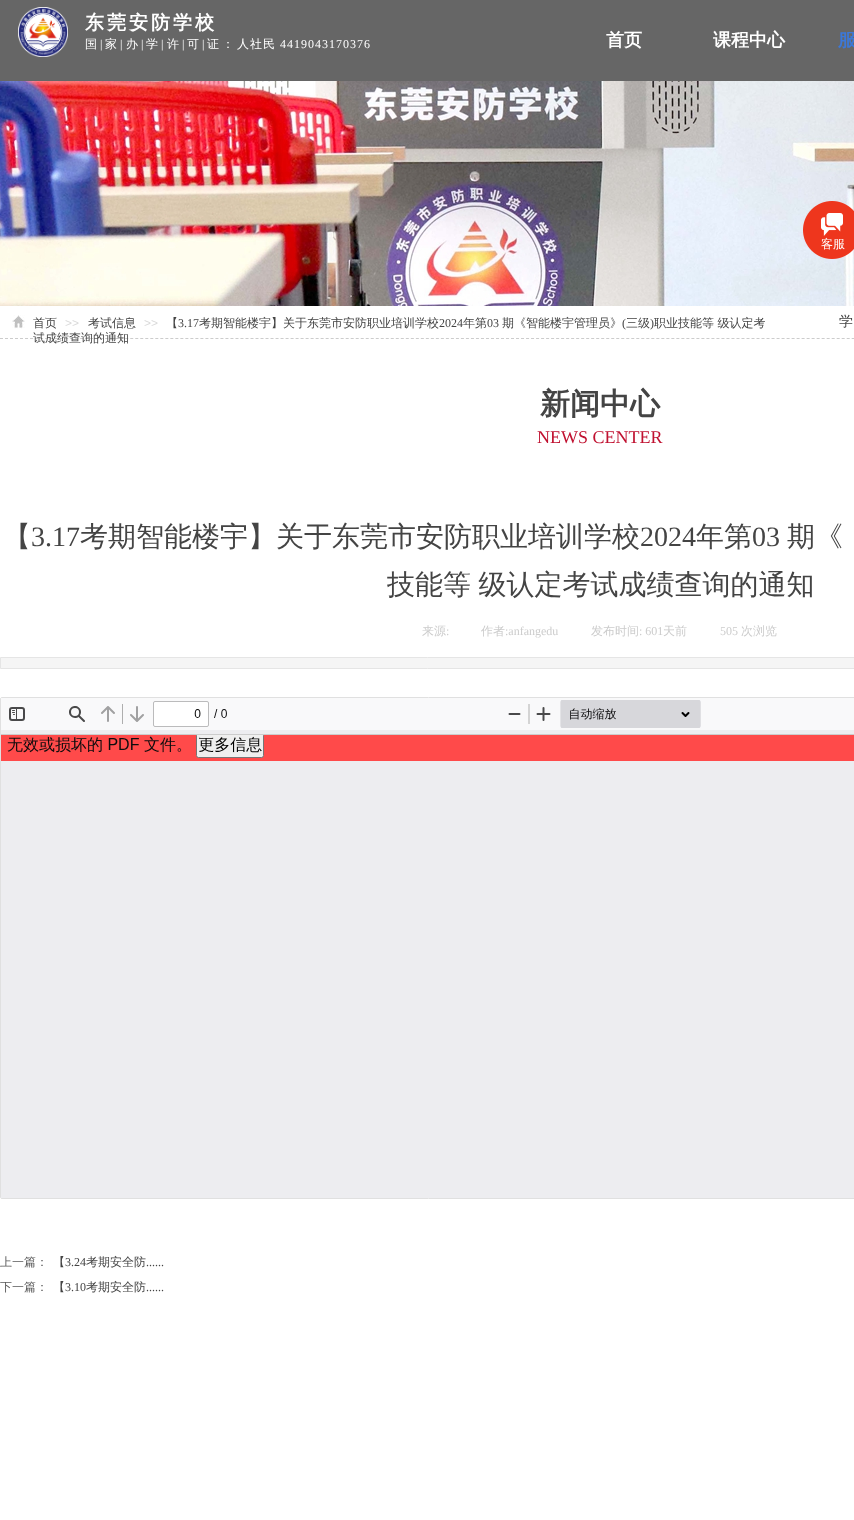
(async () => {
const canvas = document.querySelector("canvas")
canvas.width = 854
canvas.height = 1520
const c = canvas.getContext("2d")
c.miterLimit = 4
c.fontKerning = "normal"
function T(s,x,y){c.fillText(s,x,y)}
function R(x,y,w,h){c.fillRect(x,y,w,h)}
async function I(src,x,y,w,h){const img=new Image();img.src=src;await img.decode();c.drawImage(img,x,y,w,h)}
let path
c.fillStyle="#fff"
R(0,0,854,1520)
c.fillStyle="#666"
R(0,0,854,81)
await I("1.png",18,7,50,50)
c.letterSpacing="3px"
c.font="bold 19px WenQuanYi Zen Hei"
c.fillStyle="#fff"
T("东莞安防学校",85,29)
c.font="500 12px WenQuanYi Zen Hei"
T("国",85,48)
c.font="12px Liberation Serif"
T("|",100,48)
c.font="500 12px WenQuanYi Zen Hei"
T("家",105,48)
c.font="12px Liberation Serif"
T("|",120,48)
c.font="500 12px WenQuanYi Zen Hei"
T("办",126,48)
c.font="12px Liberation Serif"
T("|",141,48)
c.font="500 12px WenQuanYi Zen Hei"
T("学",146,48)
c.font="12px Liberation Serif"
T("|",161,48)
c.font="500 12px WenQuanYi Zen Hei"
T("许",167,48)
c.font="12px Liberation Serif"
T("|",182,48)
c.font="500 12px WenQuanYi Zen Hei"
T("可",187,48)
c.font="12px Liberation Serif"
T("|",202,48)
c.font="500 12px WenQuanYi Zen Hei"
T("证：",207,48)
c.letterSpacing="1px"
T("人社民",237,48)
c.font="12px Liberation Serif"
T("4419043170376",280,48)
c.letterSpacing="0px"
c.font="bold 18px WenQuanYi Zen Hei"
T("首页",606,46)
T("课程中心",713,46)
c.fillStyle="#3c78d8"
T("服",838,46)
await I("2.png",0,81,854,225)
await I("3.png",12,315,13,14)
c.font="500 12px WenQuanYi Zen Hei"
c.fillStyle="#444"
T("首页",33,327)
c.font="12px Liberation Sans"
c.fillStyle="#d9d9d9"
T(">>",65,327)
c.font="500 12px WenQuanYi Zen Hei"
c.fillStyle="#444"
T("考试信息",88,327)
c.font="12px Liberation Sans"
c.fillStyle="#d9d9d9"
T(">>",144,327)
c.font="500 12px WenQuanYi Zen Hei"
c.fillStyle="#444"
T("【",166,327)
c.font="12px Liberation Serif"
T("3.17",178,327)
c.font="500 12px WenQuanYi Zen Hei"
T("考期智能楼宇】关于东莞市安防职业培训学校",199,327)
c.font="12px Liberation Serif"
T("2024",439,327)
c.font="500 12px WenQuanYi Zen Hei"
T("年第",463,327)
c.font="12px Liberation Serif"
T("03",487,327)
c.font="500 12px WenQuanYi Zen Hei"
T("期《智能楼宇管理员》",502,327)
c.font="12px Liberation Serif"
T("(",622,327)
c.font="500 12px WenQuanYi Zen Hei"
T("三级",626,327)
c.font="12px Liberation Serif"
T(")",650,327)
c.font="500 12px WenQuanYi Zen Hei"
T("职业技能等 级认定考",654,327)
path = new Path2D("M0 338.5h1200")
c.strokeStyle="#ccc"
c.setLineDash([3,2.01])
c.stroke(path)
T("试成绩查询的通知",33,342)
c.font="500 14px WenQuanYi Zen Hei"
T("学",839,326)
c.font="bold 30px WenQuanYi Zen Hei"
T("新闻中心",540,414)
c.font="18px Liberation Serif"
c.fillStyle="#c01130"
T("NEWS CENTER",537,443)
c.font="500 28px WenQuanYi Zen Hei"
c.fillStyle="#444"
T("【",3,546)
c.font="28px Liberation Serif"
T("3.17",31,546)
c.font="500 28px WenQuanYi Zen Hei"
T("考期智能楼宇】关于东莞市安防职业培训学校",80,546)
c.font="28px Liberation Serif"
T("2024",640,546)
c.font="500 28px WenQuanYi Zen Hei"
T("年第",696,546)
c.font="28px Liberation Serif"
T("03",752,546)
c.font="500 28px WenQuanYi Zen Hei"
T("期《",787,546)
c.wordSpacing="-1px"
T("技能等 级认定考试成绩查询的通知",387,594)
c.wordSpacing="0px"
c.font="500 12px WenQuanYi Zen Hei"
c.fillStyle="#ccc"
T("来源",422,635)
c.font="12px Liberation Serif"
T(":",446,635)
c.font="500 12px WenQuanYi Zen Hei"
T("作者",481,635)
c.font="12px Liberation Serif"
T(":anfangedu",505,635)
c.font="500 12px WenQuanYi Zen Hei"
T("发布时间",591,635)
c.font="12px Liberation Serif"
T(": 601",639,635)
c.font="500 12px WenQuanYi Zen Hei"
T("天前",663,635)
c.font="12px Liberation Serif"
T("505",720,635)
c.font="500 12px WenQuanYi Zen Hei"
T("次浏览",741,635)
c.fillStyle="#f5f5f5"
c.beginPath()
c.rect(.5,657.5,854,11)
c.fill()
c.strokeStyle="#e5e5e5"
c.setLineDash([])
c.stroke()
c.beginPath()
c.roundRect(.5,697.5,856,501,1.5)
c.strokeStyle="#e0e0e0"
c.stroke()
await I("4.png",1,698,853,500)
c.fillStyle="#595959"
T("上一篇：",0,1266)
c.fillStyle="#444"
T("【",53,1266)
c.font="12px Liberation Serif"
T("3.24",65,1266)
c.font="500 12px WenQuanYi Zen Hei"
T("考期安全防",86,1266)
c.font="12px Liberation Serif"
T("......",146,1266)
c.font="500 12px WenQuanYi Zen Hei"
c.fillStyle="#595959"
T("下一篇：",0,1291)
c.fillStyle="#444"
T("【",53,1291)
c.font="12px Liberation Serif"
T("3.10",65,1291)
c.font="500 12px WenQuanYi Zen Hei"
T("考期安全防",86,1291)
c.font="12px Liberation Serif"
T("......",146,1291)
await I("5.png",803,201,51,58)
c.font="500 12px WenQuanYi Zen Hei"
c.fillStyle="#fff"
T("客服",821,248)
})()
